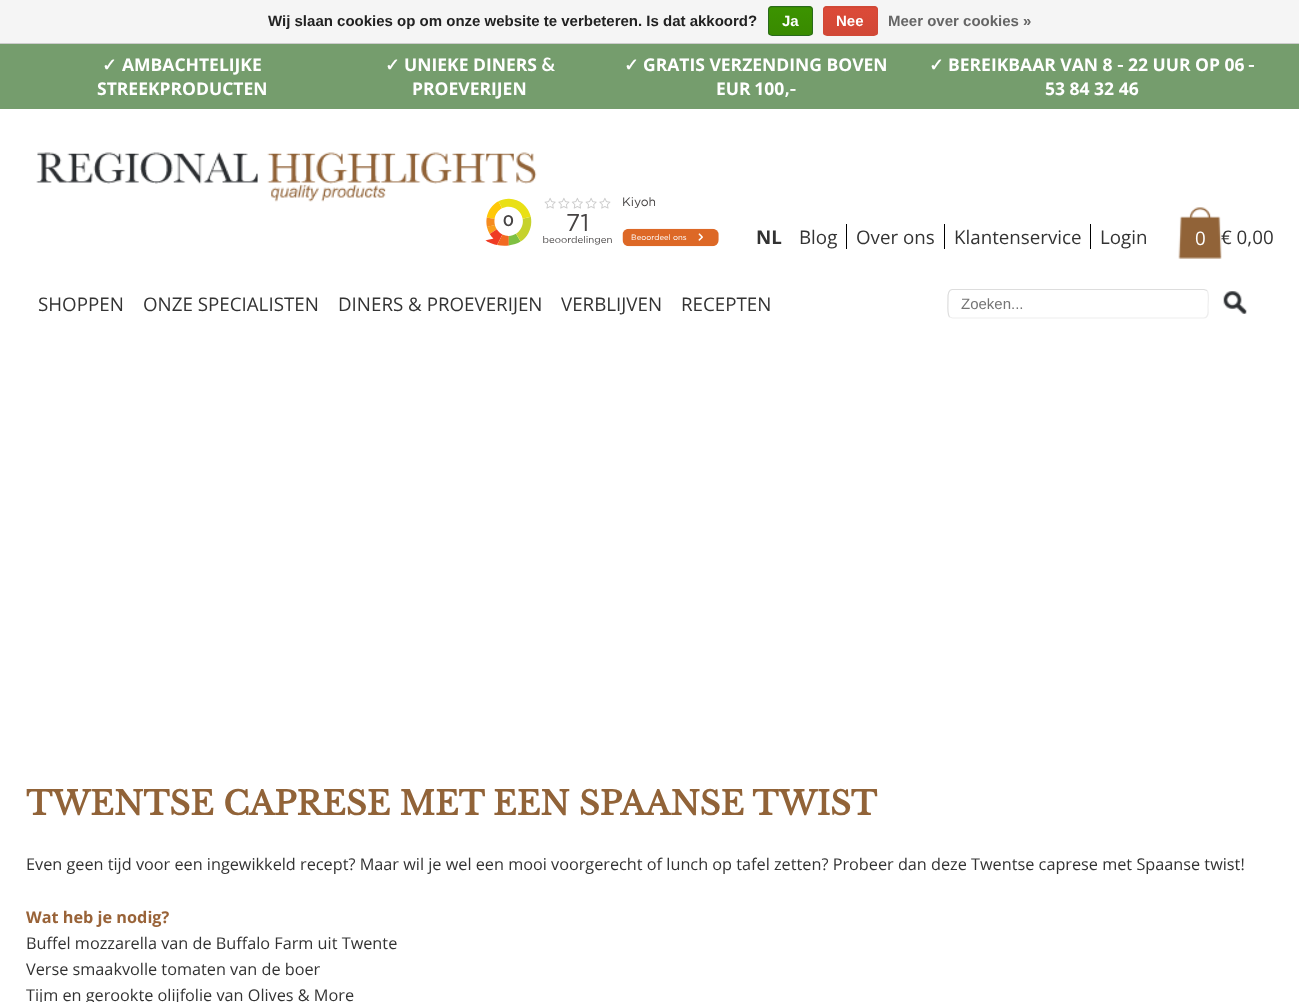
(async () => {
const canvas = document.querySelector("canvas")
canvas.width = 1299
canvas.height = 1002
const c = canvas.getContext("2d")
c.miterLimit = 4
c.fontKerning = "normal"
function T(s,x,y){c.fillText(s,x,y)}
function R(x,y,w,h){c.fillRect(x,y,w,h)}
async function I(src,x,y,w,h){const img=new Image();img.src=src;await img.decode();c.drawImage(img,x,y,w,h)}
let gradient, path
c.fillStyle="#fff"
R(0,0,1299,1002)
c.fillStyle="#f5f5f5"
R(0,0,1299,43)
c.fillStyle="#ccc"
R(0,43,1299,1)
c.font="bold 15px Liberation Sans"
c.fillStyle="#222"
T("Wij slaan cookies op om onze website te verbeteren. Is dat akkoord?",268,26)
c.save()
c.beginPath()
c.roundRect(768,6,45,30,4)
c.clip()
gradient = c.createLinearGradient(790,-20,790,7.5)
gradient.addColorStop(0,"#3c9300")
gradient.addColorStop(1,"#398a00")
c.fillStyle = gradient
R(768,6,45,2)
gradient = c.createLinearGradient(790,7.5,790,35)
gradient.addColorStop(0,"#3c9300")
gradient.addColorStop(1,"#398a00")
c.fillStyle = gradient
R(768,8,45,27)
c.restore()
c.beginPath()
c.roundRect(768.5,6.5,44,29,3.5)
c.strokeStyle="#29691d"
c.stroke()
c.fillStyle="#fff"
T("Ja",782,26)
c.save()
c.beginPath()
c.roundRect(823,6,55,30,4)
c.clip()
gradient = c.createLinearGradient(850,-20,850,7.5)
gradient.addColorStop(0,"#dc4a38")
gradient.addColorStop(1,"#d14836")
c.fillStyle = gradient
R(823,6,55,2)
gradient = c.createLinearGradient(850,7.5,850,35)
gradient.addColorStop(0,"#dc4a38")
gradient.addColorStop(1,"#d14836")
c.fillStyle = gradient
R(823,8,55,27)
c.restore()
c.beginPath()
c.roundRect(823.5,6.5,54,29,3.5)
c.strokeStyle="#d14836"
c.stroke()
T("Nee",836,26)
c.fillStyle="#666"
T("Meer over cookies »",888,26)
c.fillStyle="#759d6d"
R(0,44,1299,65)
c.font="bold 17.5px DejaVu Sans"
c.fillStyle="#fff"
T("✓",102,71)
c.font="bold 17.5px Open Sans"
T("AMBACHTELIJKE",122,71)
T("STREEKPRODUCTEN",97,95)
c.font="bold 17.5px DejaVu Sans"
T("✓",385,71)
c.font="bold 17.5px Open Sans"
T("UNIEKE DINERS",404,71)
c.font="bold 17.5px DejaVu Sans"
T("&",541,71)
c.font="bold 17.5px Open Sans"
T("PROEVERIJEN",412,95)
c.font="bold 17.5px DejaVu Sans"
T("✓",624,71)
c.font="bold 17.5px Open Sans"
T("GRATIS VERZENDING BOVEN",643,71)
c.wordSpacing="-1px"
T("EUR 100",716,95)
c.wordSpacing="0px"
c.font="bold 17.5px DejaVu Sans"
T(",-",784,95)
T("✓",929,71)
c.font="bold 17.5px Open Sans"
T("BEREIKBAAR VAN 8",948,71)
c.font="bold 17.5px DejaVu Sans"
T("-",1117,71)
c.font="bold 17.5px Open Sans"
T("22 UUR OP 06",1128,71)
c.font="bold 17.5px DejaVu Sans"
T("-",1248,71)
c.font="bold 17.5px Open Sans"
T("53 84 32 46",1045,95)
await I("1.png",36,152,501,50)
await I("2.png",485,197,234,50)
c.font="bold 18.75px Open Sans"
c.fillStyle="#333"
T("NL",756,244)
c.fillStyle="#000"
R(846,224,1,25)
c.font="18.75px Open Sans"
c.fillStyle="#333"
T("Blog",799,244)
c.fillStyle="#000"
R(944,224,1,25)
c.fillStyle="#333"
T("Over ons",856,244)
c.fillStyle="#000"
R(1090,224,1,25)
c.fillStyle="#333"
T("Klantenservice",954,244)
T("Login",1100,244)
await I("3.png",1178,207,44,52)
c.fillStyle="#fff"
T("0",1195,245)
c.fillStyle="#333"
T("€ 0,00",1221,244)
T("SHOPPEN",38,311)
T("ONZE SPECIALISTEN",143,311)
T("DINERS & PROEVERIJEN",338,311)
T("VERBLIJVEN",561,311)
T("RECEPTEN",681,311)
path = new Path2D("M1207 290.5c2.5 3 1 13 1 16.5c0 3.5 1.5 10.5-4 11h-251.5l-3-1")
c.strokeStyle="#eee"
c.lineWidth=1.2
c.stroke(path)
path = new Path2D("M949.5 317c-2.5-3-1.5-13-1.5-16.5c0-3.5-1-10.5 4-11h252l3 1")
c.strokeStyle="#ddd"
c.stroke(path)
c.font="15px Liberation Sans"
c.fillStyle="#757575"
T("Zoeken...",961,309)
await I("4.png",1223,291,24,23)
c.font="bold 32.5px Libre Baskerville"
c.fillStyle="#916338"
T("TWENTSE CAPRESE MET EEN SPAANSE TWIST",26,815)
c.font="16.25px Open Sans"
c.fillStyle="#333"
T("Even geen tijd voor een ingewikkeld recept? Maar wil je wel een mooi voorgerecht of lunch op tafel zetten? Probeer dan deze Twentse caprese met Spaanse twist!",26,870)
c.font="bold 16.25px Open Sans"
c.fillStyle="#996338"
T("Wat heb je nodig?",26,923)
c.font="16.25px Open Sans"
c.fillStyle="#333"
T("Buffel mozzarella van de Buffalo Farm uit Twente",26,949)
T("Verse smaakvolle tomaten van de boer",26,975)
T("Tijm en gerookte olijfolie van Olives & More",26,1001)
})()
